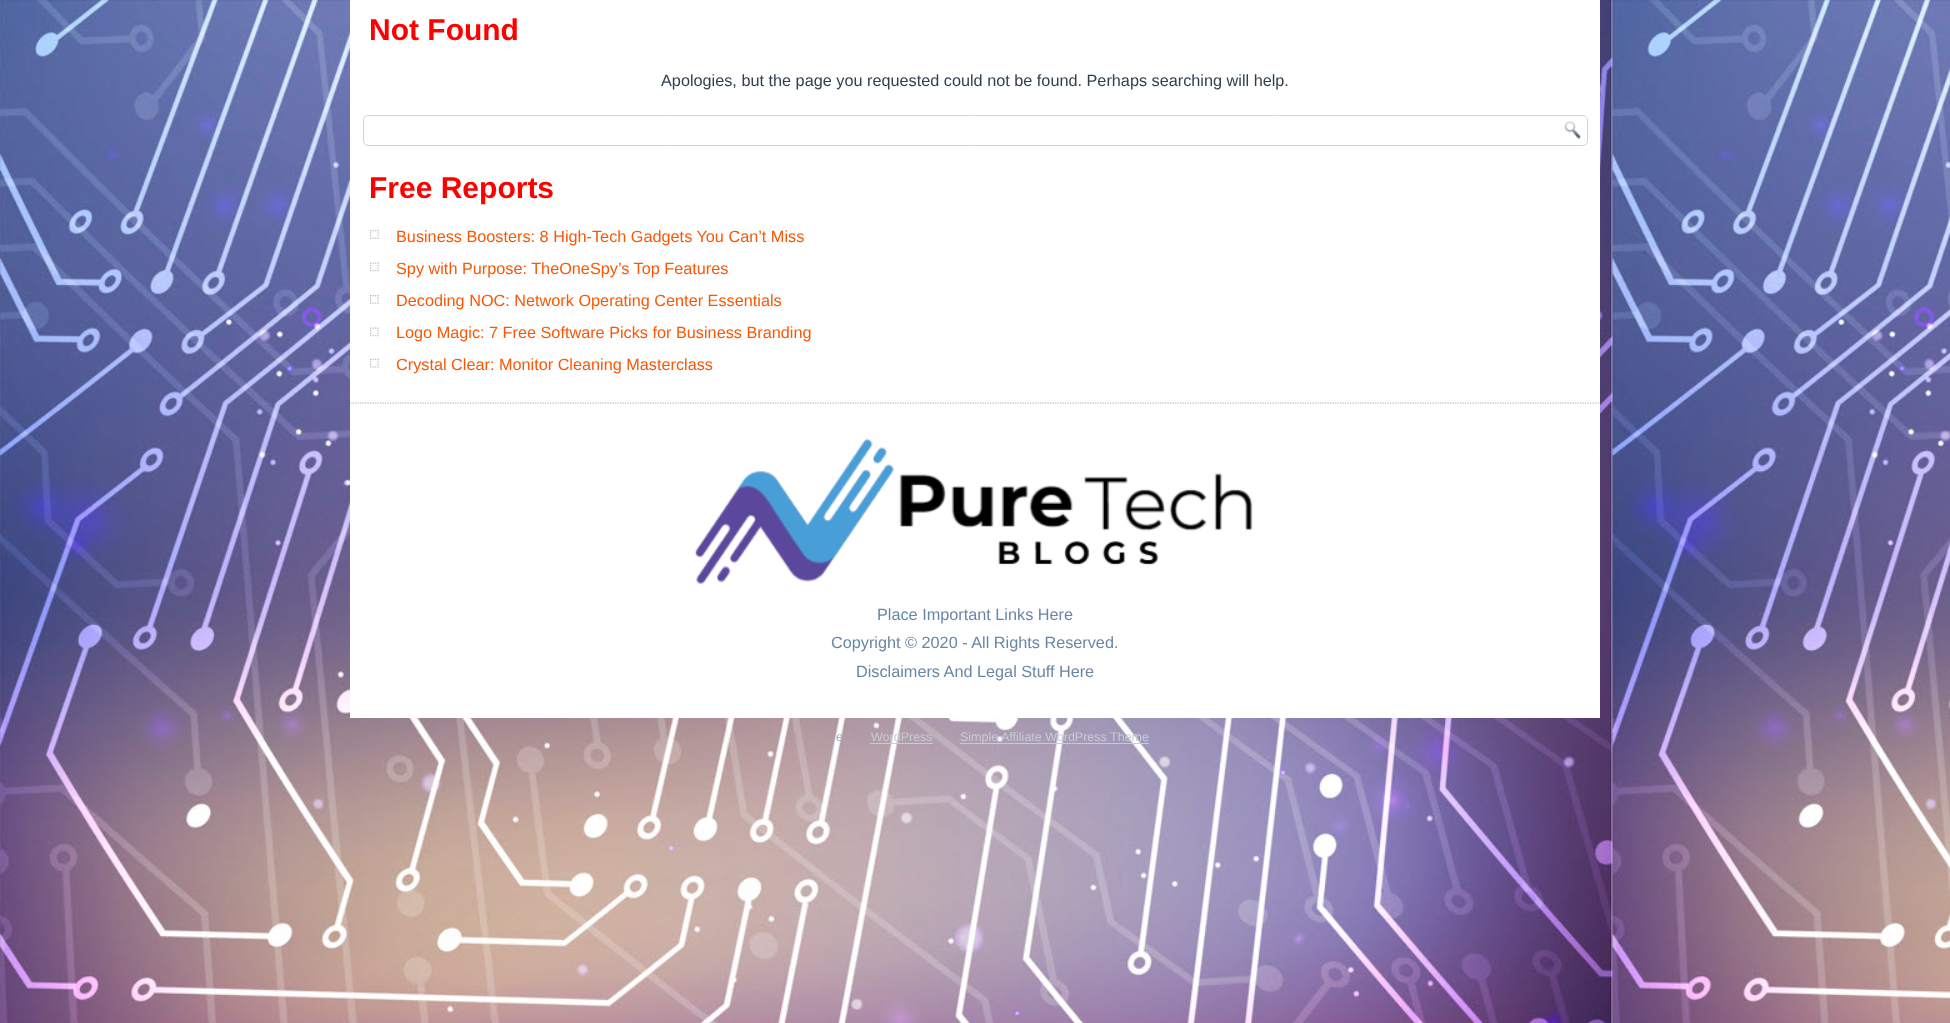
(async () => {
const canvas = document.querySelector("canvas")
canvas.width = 1950
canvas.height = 1023
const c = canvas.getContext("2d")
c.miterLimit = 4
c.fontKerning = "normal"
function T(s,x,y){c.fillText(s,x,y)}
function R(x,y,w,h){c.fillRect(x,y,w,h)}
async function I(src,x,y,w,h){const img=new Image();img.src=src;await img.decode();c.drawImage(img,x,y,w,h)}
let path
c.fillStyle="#fff"
R(0,0,1950,1023)
await I("1.png",0,0,1950,1023)
R(350,0,1250,718)
c.font="bold 30px Liberation Sans"
c.fillStyle="#f00"
T("Not Found",369,40)
c.font="16.25px Liberation Sans"
c.fillStyle="#303f50"
T("Apologies, but the page you requested could not be found. Perhaps searching will help.",661,86)
c.beginPath()
c.roundRect(363.5,115.5,1224,30,4.5)
c.strokeStyle="#ccd6e0"
c.stroke()
await I("2.png",1564,121,18,18)
c.font="bold 30px Liberation Sans"
c.fillStyle="#f00"
T("Free Reports",369,198)
await I("3.png",370,230,9,9)
c.font="16.25px Liberation Sans"
c.fillStyle="#fa5705"
T("Business Boosters: 8 High-Tech Gadgets You Can’t Miss",396,242)
await I("4.png",370,262,9,10)
T("Spy with Purpose: TheOneSpy’s Top Features",396,274)
await I("3.png",370,295,9,9)
T("Decoding NOC: Network Operating Center Essentials",396,306)
await I("4.png",370,327,9,10)
T("Logo Magic: 7 Free Software Picks for Business Branding",396,338)
await I("5.png",370,358,9,10)
T("Crystal Clear: Monitor Cleaning Masterclass",396,370)
path = new Path2D("M350 403h1250")
c.strokeStyle="#9cafc4"
c.lineWidth=1.2
c.setLineDash([1.25,1.25])
c.stroke(path)
await I("6.png",695,438,558,147)
c.fillStyle="#6986a5"
T("Place Important Links Here",877,620)
T("Copyright © 2020 - All Rights Reserved.",831,648)
T("Disclaimers And Legal Stuff Here",856,677)
c.font="12.5px Liberation Sans"
c.fillStyle="#9fb2c6"
T("e",836,741)
c.fillStyle="#c4ccd4"
T("WordPress",871,741)
R(870,743,63,1)
R(960,743,189,1)
T("Simple Affiliate WordPress Theme",960,741)
})()
